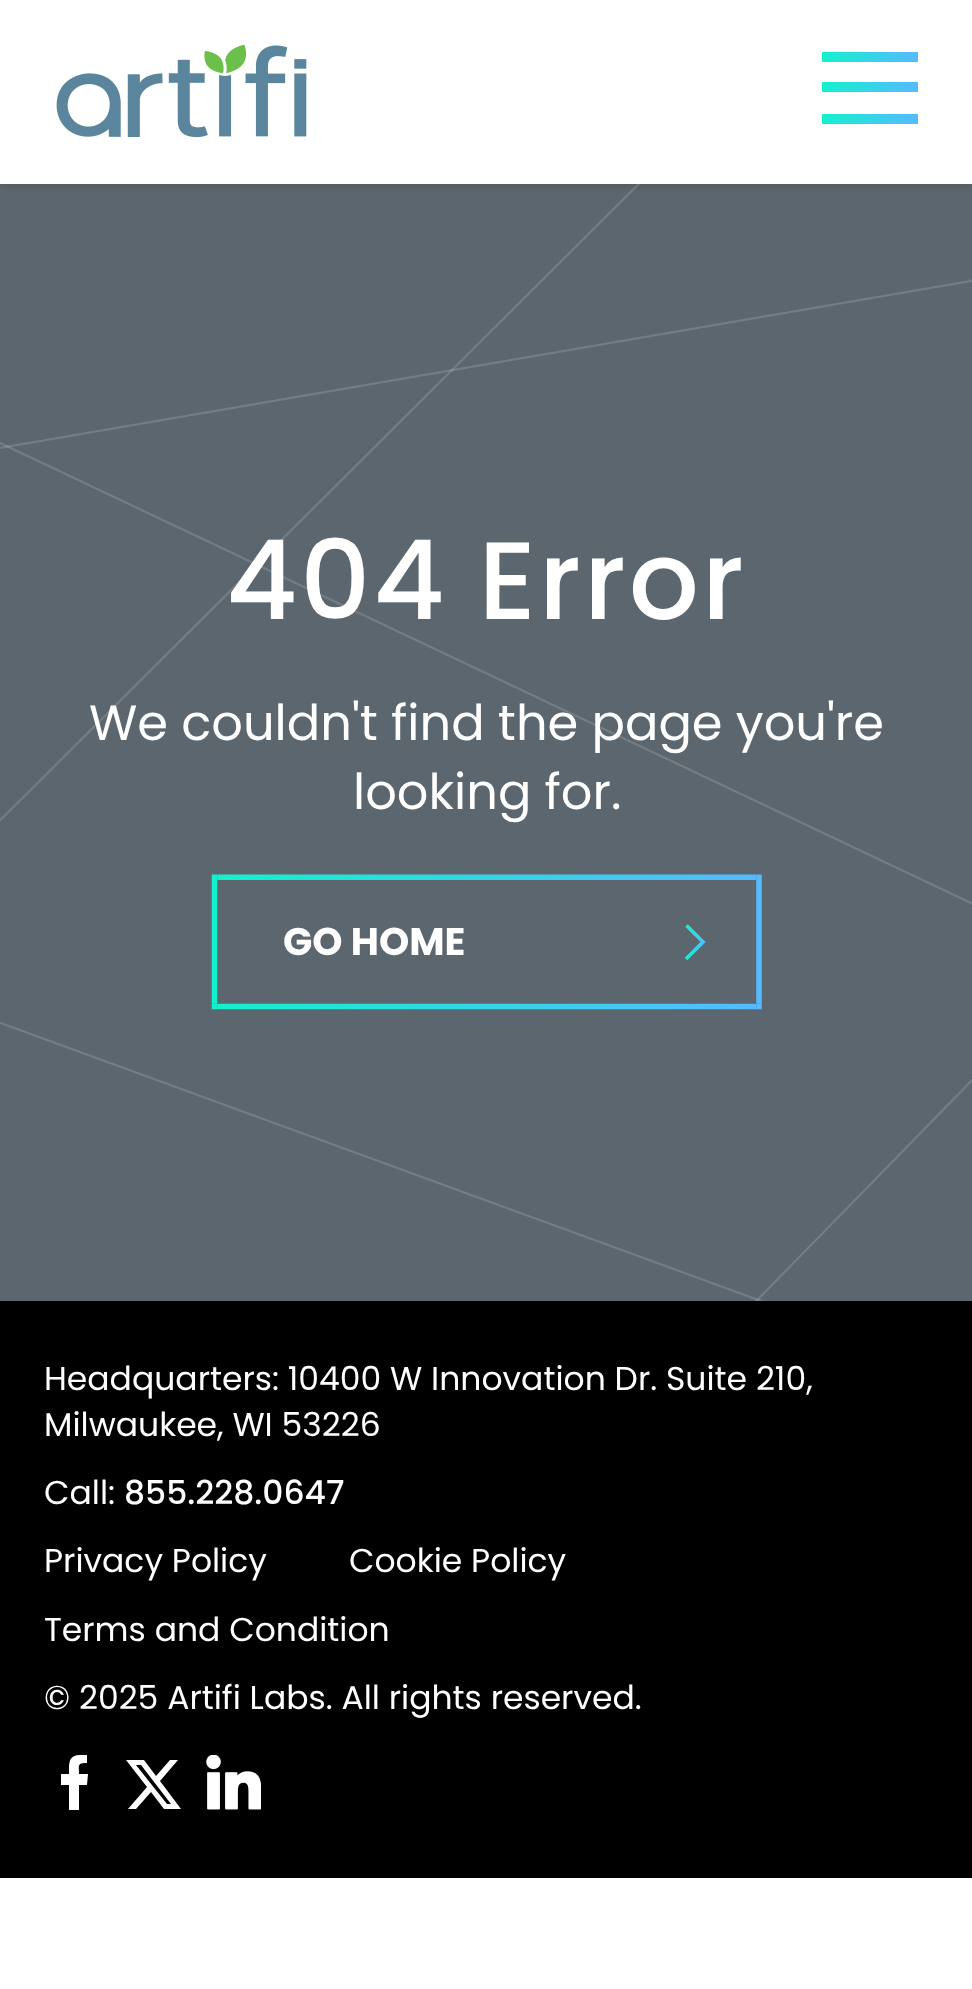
(async () => {
const canvas = document.querySelector("canvas")
canvas.width = 972
canvas.height = 1989
const c = canvas.getContext("2d")
c.miterLimit = 4
c.fontKerning = "normal"
function T(s,x,y){c.fillText(s,x,y)}
function R(x,y,w,h){c.fillRect(x,y,w,h)}
async function I(src,x,y,w,h){const img=new Image();img.src=src;await img.decode();c.drawImage(img,x,y,w,h)}
let gradient, path
c.fillStyle="#fff"
R(0,0,972,1989)
await I("2.png",0,184,972,1117)
c.fillStyle="#0000001a"
c.filter="blur(3px)"
c.beginPath()
c.rect(0,3,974,184)
c.fill()
c.filter="none"
c.fillStyle="#fff"
R(0,0,972,184)
await I("1.png",56,44,251,94)
gradient = c.createLinearGradient(822,88,918,88)
gradient.addColorStop(0,"#14f0cd")
gradient.addColorStop(1,"#55baff")
c.fillStyle = gradient
path = new Path2D("M918 124h-96v-10h96zm0-42h-96v10h96zm0-30h-96v10h96z")
c.fill(path)
c.letterSpacing="2.75px"
c.font="500 110px Poppins"
c.fillStyle="#fff"
T("404 Error",226,619)
c.letterSpacing="0px"
c.font="49.5px Poppins"
T("We couldn't find the page you're",89,740)
T("looking for.",353,809)
await I("3.png",211,874,551,136)
c.font="bold 38.5px Poppins"
T("GO HOME",283,955)
path = new Path2D("M686.5 925.5l16.5 16.5l-17 17")
gradient = c.createLinearGradient(707,942,685,942)
gradient.addColorStop(0,"#55baff")
gradient.addColorStop(1,"#14f0cd")
c.strokeStyle = gradient
c.lineWidth=3.7
c.stroke(path)
c.fillStyle="#000"
R(0,1301,972,577)
c.font="33px Poppins"
c.fillStyle="#fff"
T("Headquarters: 10400 W Innovation Dr. Suite 210,",44,1390)
T("Milwaukee, WI 53226",44,1436)
T("Call:",44,1504)
c.font="500 33px Poppins"
T("855.228.0647",124,1504)
c.font="33px Poppins"
T("Privacy Policy",44,1572)
T("Cookie Policy",349,1572)
T("Terms and Condition",44,1641)
T("© 2025 Artifi Labs. All rights reserved.",44,1709)
c.save()
c.beginPath()
c.rect(61,1755,27,55)
c.clip()
path = new Path2D("M79 1809v-24h8l1-11h-9c0-9-2-11 8-11v-8h-7c-12 0-11 9-11 19h-9v11h9v25h10z")
c.fill(path,"evenodd")
c.restore()
path = new Path2D("M170 1760h8l-18 21l21 28h-17l-13-17l-15 17h-8l19-22l-21-27h18l12 16zm-3 44h4l-30-39h-5z")
c.fill(path)
await I("4.png",206,1755,55,55)
})()
